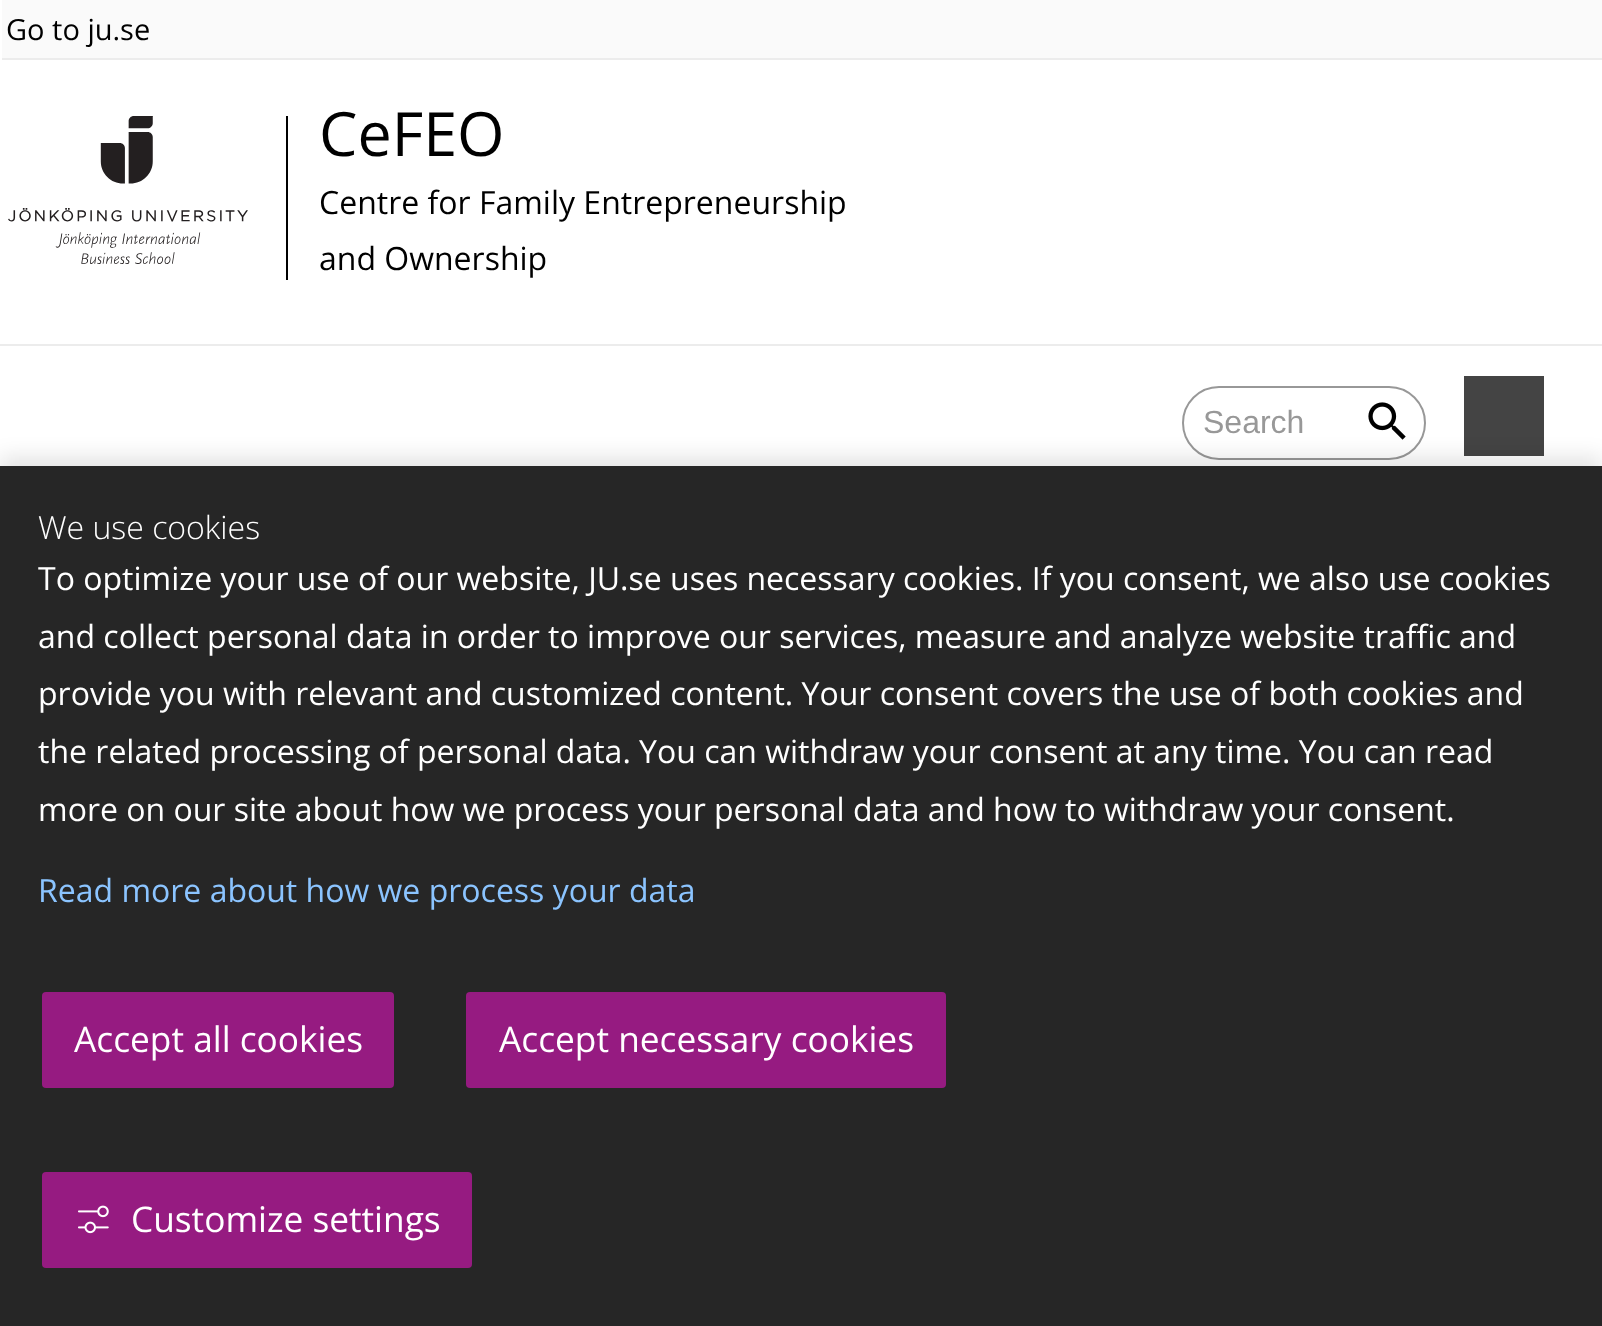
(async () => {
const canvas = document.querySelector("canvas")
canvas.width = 1602
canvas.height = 1326
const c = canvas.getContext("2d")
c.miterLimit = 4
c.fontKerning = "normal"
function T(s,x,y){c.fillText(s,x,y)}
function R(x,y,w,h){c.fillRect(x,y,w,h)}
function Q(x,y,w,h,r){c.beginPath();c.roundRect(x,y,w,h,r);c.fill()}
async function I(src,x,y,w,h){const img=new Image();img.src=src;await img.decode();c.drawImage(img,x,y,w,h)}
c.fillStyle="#fff"
R(0,0,1602,1326)
c.fillStyle="#ececec"
R(0,344,1602,2)
c.fillStyle="#fafafa"
R(2,0,1600,58)
c.fillStyle="#ececec"
R(2,58,1600,2)
c.font="29px Open Sans"
c.fillStyle="#000"
T("Go to ju.se",6,40)
R(286,116,2,164)
await I("1.png",8,116,240,148)
c.font="61px Open Sans"
T("CeFEO",319,156)
c.font="32px Open Sans"
T("Centre for Family Entrepreneurship",319,214)
T("and Ownership",319,270)
c.beginPath()
c.roundRect(1183,387,242,72,36)
c.strokeStyle="#989898"
c.lineWidth=2
c.stroke()
c.font="32px Liberation Sans"
c.fillStyle="#989898"
T("Search",1203,433)
await I("2.png",1368,402,38,38)
c.fillStyle="#444"
R(1464,376,80,80)
c.fillStyle="#0000001a"
c.filter="blur(10px)"
c.beginPath()
c.rect(0,456,1602,860)
c.fill()
c.filter="none"
c.fillStyle="#262626"
R(0,466,1602,860)
c.font="300 32px Open Sans"
c.fillStyle="#fff"
T("We use cookies",38,539)
c.font="32px Open Sans"
T("To optimize your use of our website, JU.se uses necessary cookies. If you consent, we also use cookies",38,590)
T("and collect personal data in order to improve our services, measure and analyze website traffic and",38,648)
T("provide you with relevant and customized content. Your consent covers the use of both cookies and",38,705)
T("the related processing of personal data. You can withdraw your consent at any time. You can read",38,763)
T("more on our site about how we process your personal data and how to withdraw your consent.",38,821)
c.fillStyle="#8bc4ff"
T("Read more about how we process your data",38,902)
c.fillStyle="#961b81"
Q(42,992,352,96,4)
c.font="35.25px Open Sans"
c.fillStyle="#fff"
T("Accept all cookies",74,1052)
c.fillStyle="#961b81"
Q(466,992,480,96,4)
c.fillStyle="#fff"
T("Accept necessary cookies",499,1052)
c.fillStyle="#961b81"
Q(42,1172,430,96,4)
await I("3.png",78,1205,31,29)
c.fillStyle="#fff"
T("Customize settings",131,1232)
})()
